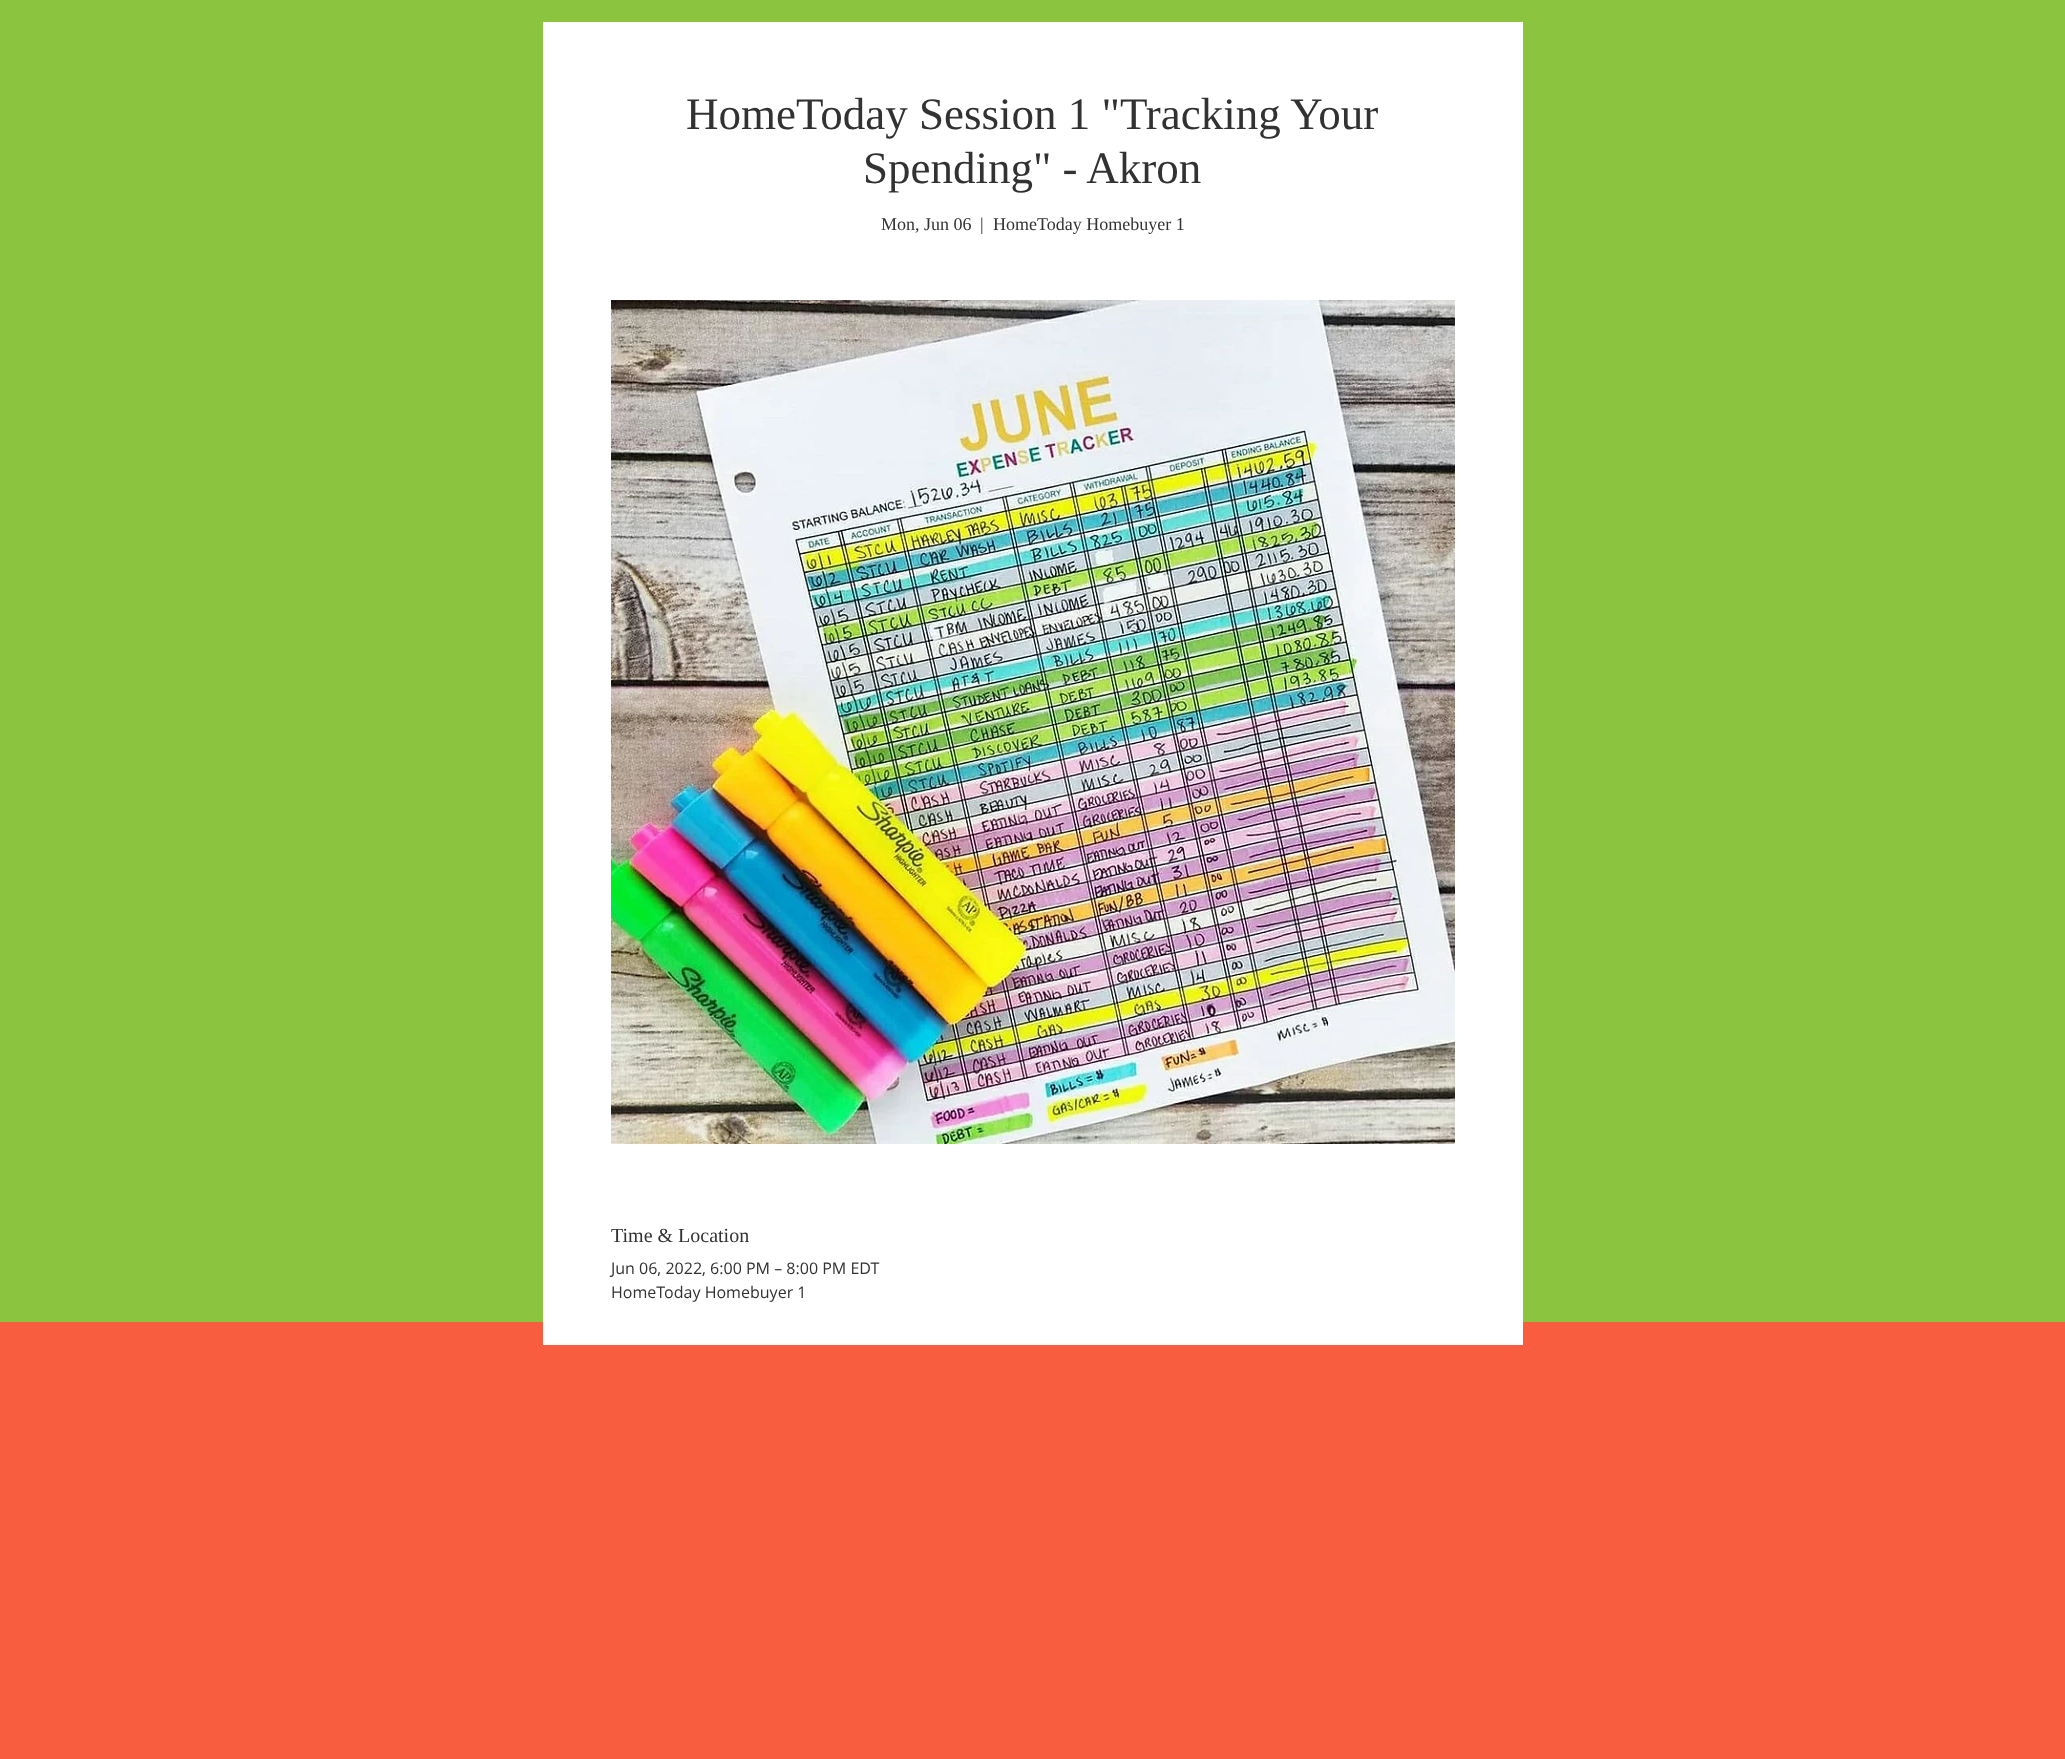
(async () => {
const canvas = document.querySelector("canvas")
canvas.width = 2065
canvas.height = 1759
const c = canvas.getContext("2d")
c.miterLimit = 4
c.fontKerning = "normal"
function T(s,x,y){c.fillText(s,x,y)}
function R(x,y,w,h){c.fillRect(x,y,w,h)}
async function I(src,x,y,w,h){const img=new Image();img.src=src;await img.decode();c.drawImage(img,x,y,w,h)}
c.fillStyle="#f75d3e"
R(0,0,2065,1759)
c.fillStyle="#8bc43e"
R(0,0,2065,1322)
c.fillStyle="#fff"
R(543,22,980,1323)
c.font="45px Liberation Serif"
c.fillStyle="#323232"
T("HomeToday Session 1 \"Tracking Your",686,129)
T("Spending\" - Akron",863,183)
c.font="18px Liberation Serif"
T("Mon, Jun 06",881,230)
T("|",980,230)
T("HomeToday Homebuyer 1",993,230)
await I("1.png",611,300,844,844)
c.font="20px Liberation Serif"
T("Time & Location",611,1242)
c.font="16px Open Sans"
T("Jun 06, 2022, 6:00 PM – 8:00 PM EDT",611,1274)
T("HomeToday Homebuyer 1",611,1298)
})()
